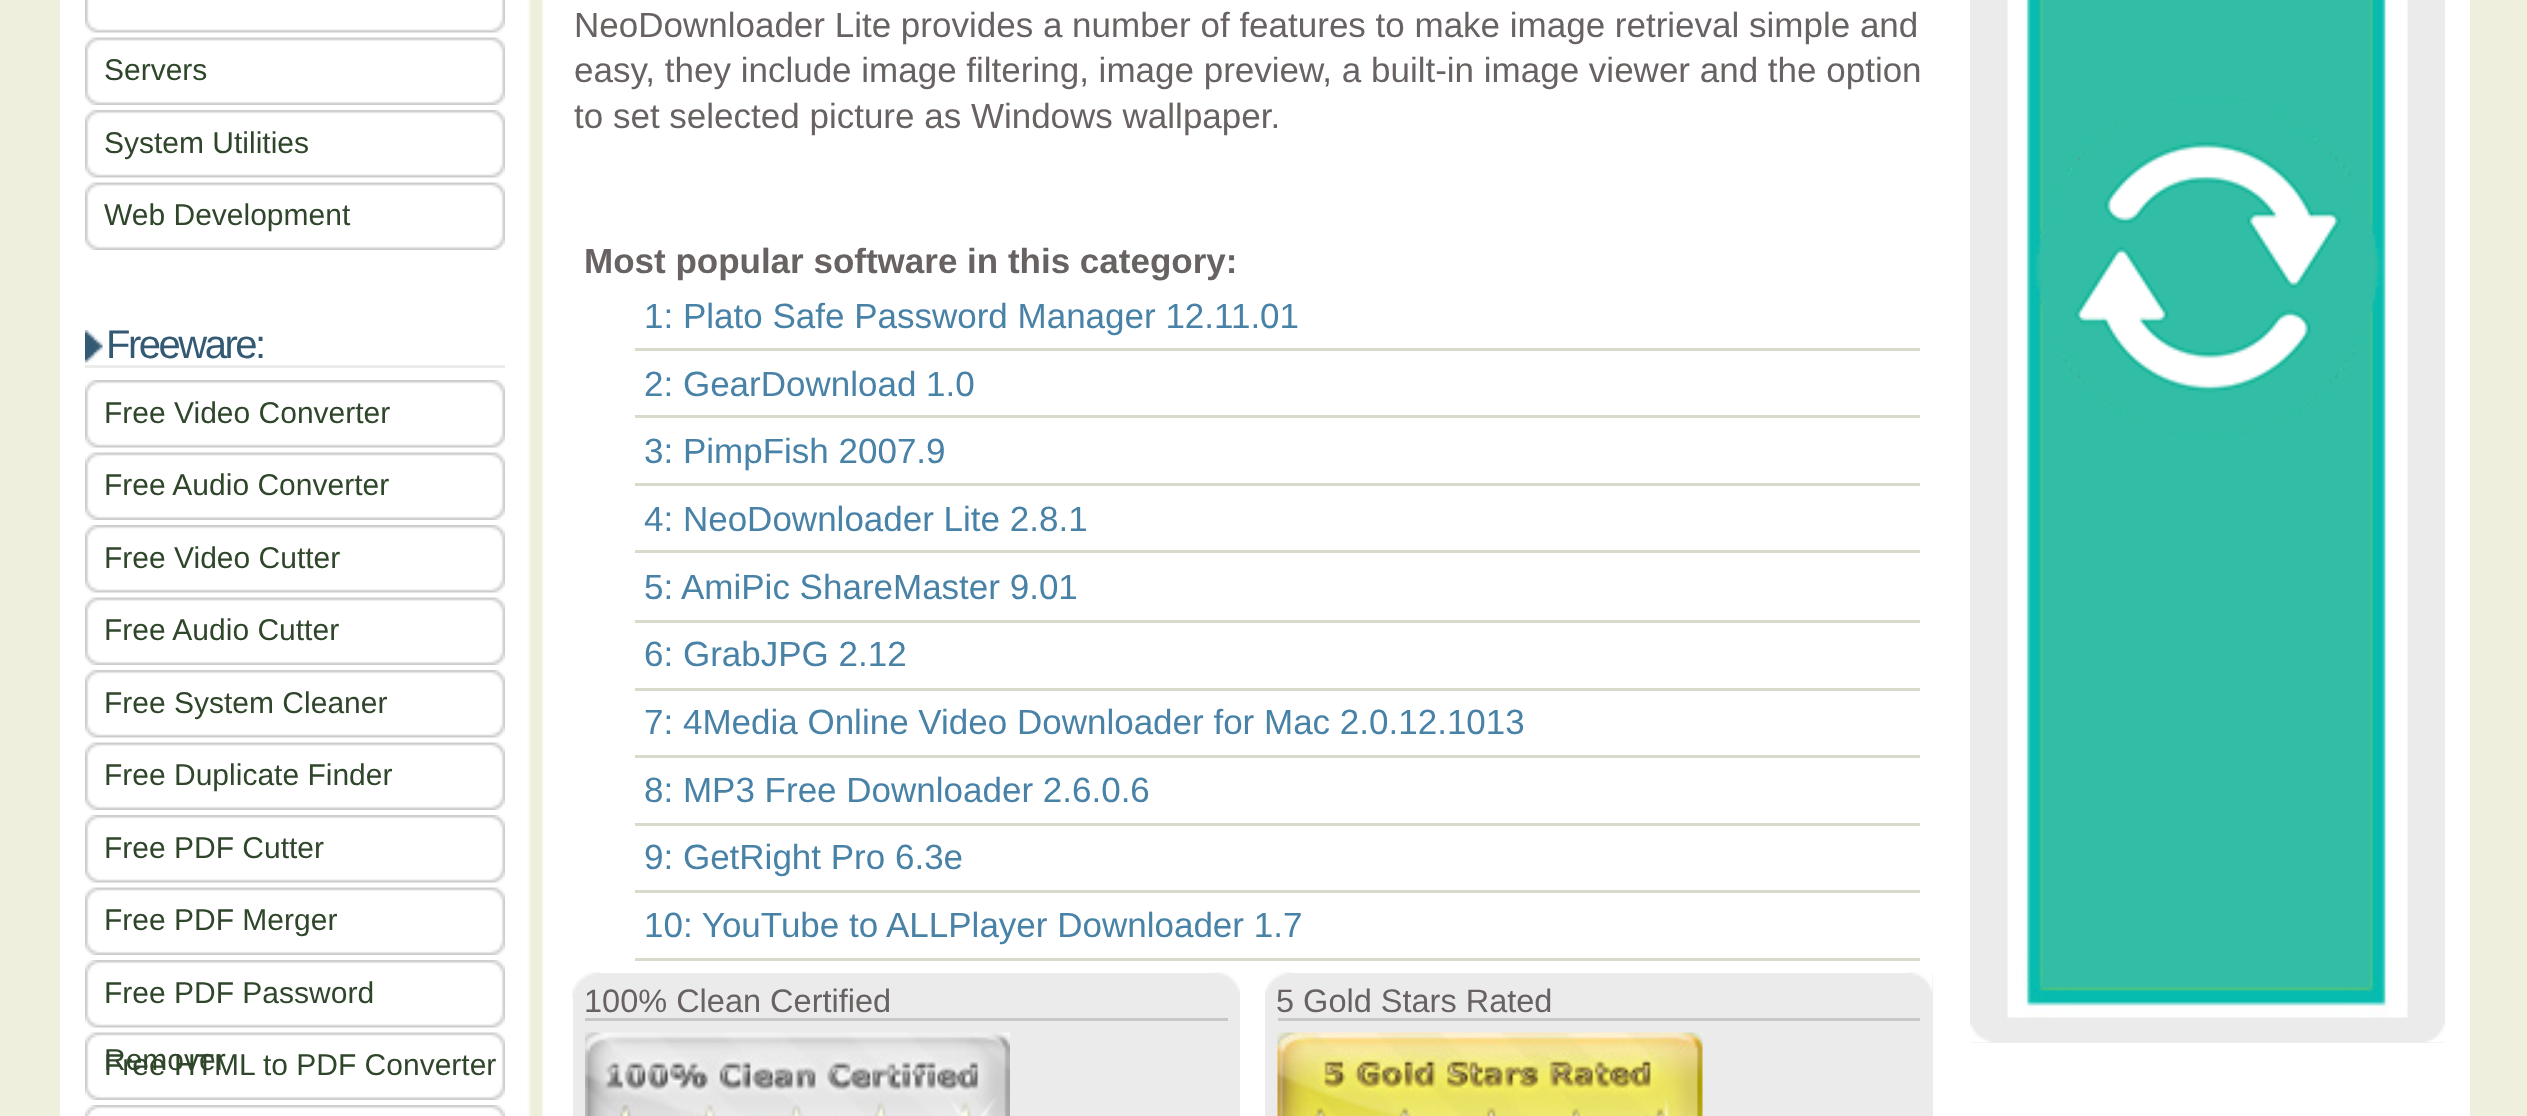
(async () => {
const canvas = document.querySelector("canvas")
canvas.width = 2527
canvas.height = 1116
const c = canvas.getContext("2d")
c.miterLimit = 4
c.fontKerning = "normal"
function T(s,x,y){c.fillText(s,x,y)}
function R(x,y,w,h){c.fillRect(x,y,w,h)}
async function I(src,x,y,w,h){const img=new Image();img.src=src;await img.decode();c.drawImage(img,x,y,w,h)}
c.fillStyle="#efefdd"
R(0,0,2527,1116)
await I("1.png",60,0,2410,1116)
await I("2.png",85,0,420,33)
await I("3.png",85,37,420,68)
c.font="30px Liberation Sans"
c.fillStyle="#2f462b"
T("Servers",104,80)
await I("4.png",85,110,420,68)
T("System Utilities",104,153)
await I("3.png",85,182,420,68)
T("Web Development",104,225)
await I("5.png",85,330,18,33)
c.fillStyle="#ececec"
R(85,365,420,3)
c.letterSpacing="-2.5px"
c.font="40px Liberation Sans"
c.fillStyle="#335973"
T("Freeware:",106,358)
await I("4.png",85,380,420,68)
c.letterSpacing="0px"
c.font="30px Liberation Sans"
c.fillStyle="#2f462b"
T("Free Video Converter",104,423)
await I("3.png",85,452,420,68)
T("Free Audio Converter",104,495)
await I("4.png",85,525,420,68)
T("Free Video Cutter",104,568)
await I("3.png",85,597,420,68)
T("Free Audio Cutter",104,640)
await I("4.png",85,670,420,68)
T("Free System Cleaner",104,713)
await I("3.png",85,742,420,68)
T("Free Duplicate Finder",104,785)
await I("4.png",85,815,420,68)
T("Free PDF Cutter",104,858)
await I("3.png",85,887,420,68)
T("Free PDF Merger",104,930)
await I("4.png",85,960,420,68)
T("Free PDF Password",104,1003)
await I("3.png",85,1032,420,68)
T("Remover",104,1070)
T("Free HTML to PDF Converter",104,1075)
await I("6.png",85,1105,420,11)
c.font="35px Liberation Sans"
c.fillStyle="#686362"
T("NeoDownloader Lite provides a number of features to make image retrieval simple and",574,37)
T("easy, they include image filtering, image preview, a built-in image viewer and the option",574,82)
T("to set selected picture as Windows wallpaper.",574,128)
c.font="bold 35px Liberation Sans"
T("Most popular software in this category:",584,273)
c.fillStyle="#dadacc"
R(635,348,1285,3)
c.font="35px Liberation Sans"
c.fillStyle="#4982a7"
T("1: Plato Safe Password Manager 12.11.01",644,328)
c.fillStyle="#dadacc"
R(635,415,1285,3)
c.fillStyle="#4982a7"
T("2: GearDownload 1.0",644,396)
c.fillStyle="#dadacc"
R(635,483,1285,3)
c.fillStyle="#4982a7"
T("3: PimpFish 2007.9",644,463)
c.fillStyle="#dadacc"
R(635,550,1285,3)
c.fillStyle="#4982a7"
T("4: NeoDownloader Lite 2.8.1",644,531)
c.fillStyle="#dadacc"
R(635,620,1285,3)
c.fillStyle="#4982a7"
T("5: AmiPic ShareMaster 9.01",644,599)
c.fillStyle="#dadacc"
R(635,688,1285,3)
c.fillStyle="#4982a7"
T("6: GrabJPG 2.12",644,666)
c.fillStyle="#dadacc"
R(635,755,1285,3)
c.fillStyle="#4982a7"
T("7: 4Media Online Video Downloader for Mac 2.0.12.1013",644,734)
c.fillStyle="#dadacc"
R(635,823,1285,3)
c.fillStyle="#4982a7"
T("8: MP3 Free Downloader 2.6.0.6",644,802)
c.fillStyle="#dadacc"
R(635,890,1285,3)
c.fillStyle="#4982a7"
T("9: GetRight Pro 6.3e",644,869)
c.fillStyle="#dadacc"
R(635,958,1285,3)
c.fillStyle="#4982a7"
T("10: YouTube to ALLPlayer Downloader 1.7",644,937)
c.fillStyle="#ebebeb"
R(573,973,667,143)
await I("7.png",1215,972,25,20)
await I("8.png",572,972,28,26)
c.fillStyle="#c7c7c7"
R(585,1018,643,3)
c.font="32.5px Liberation Sans"
c.fillStyle="#686362"
T("100% Clean Certified",584,1012)
await I("9.png",585,1032,425,84)
c.fillStyle="#ebebeb"
R(1265,973,668,143)
await I("10.png",1907,972,26,20)
await I("11.png",1265,972,28,20)
c.fillStyle="#c7c7c7"
R(1278,1018,642,3)
c.fillStyle="#686362"
T("5 Gold Stars Rated",1276,1012)
await I("12.png",1277,1032,426,84)
c.fillStyle="#ebebeb"
R(1970,0,475,1043)
await I("13.png",1970,1023,21,20)
await I("14.png",2426,1023,19,20)
await I("15.png",2007,0,401,1018)
})()
